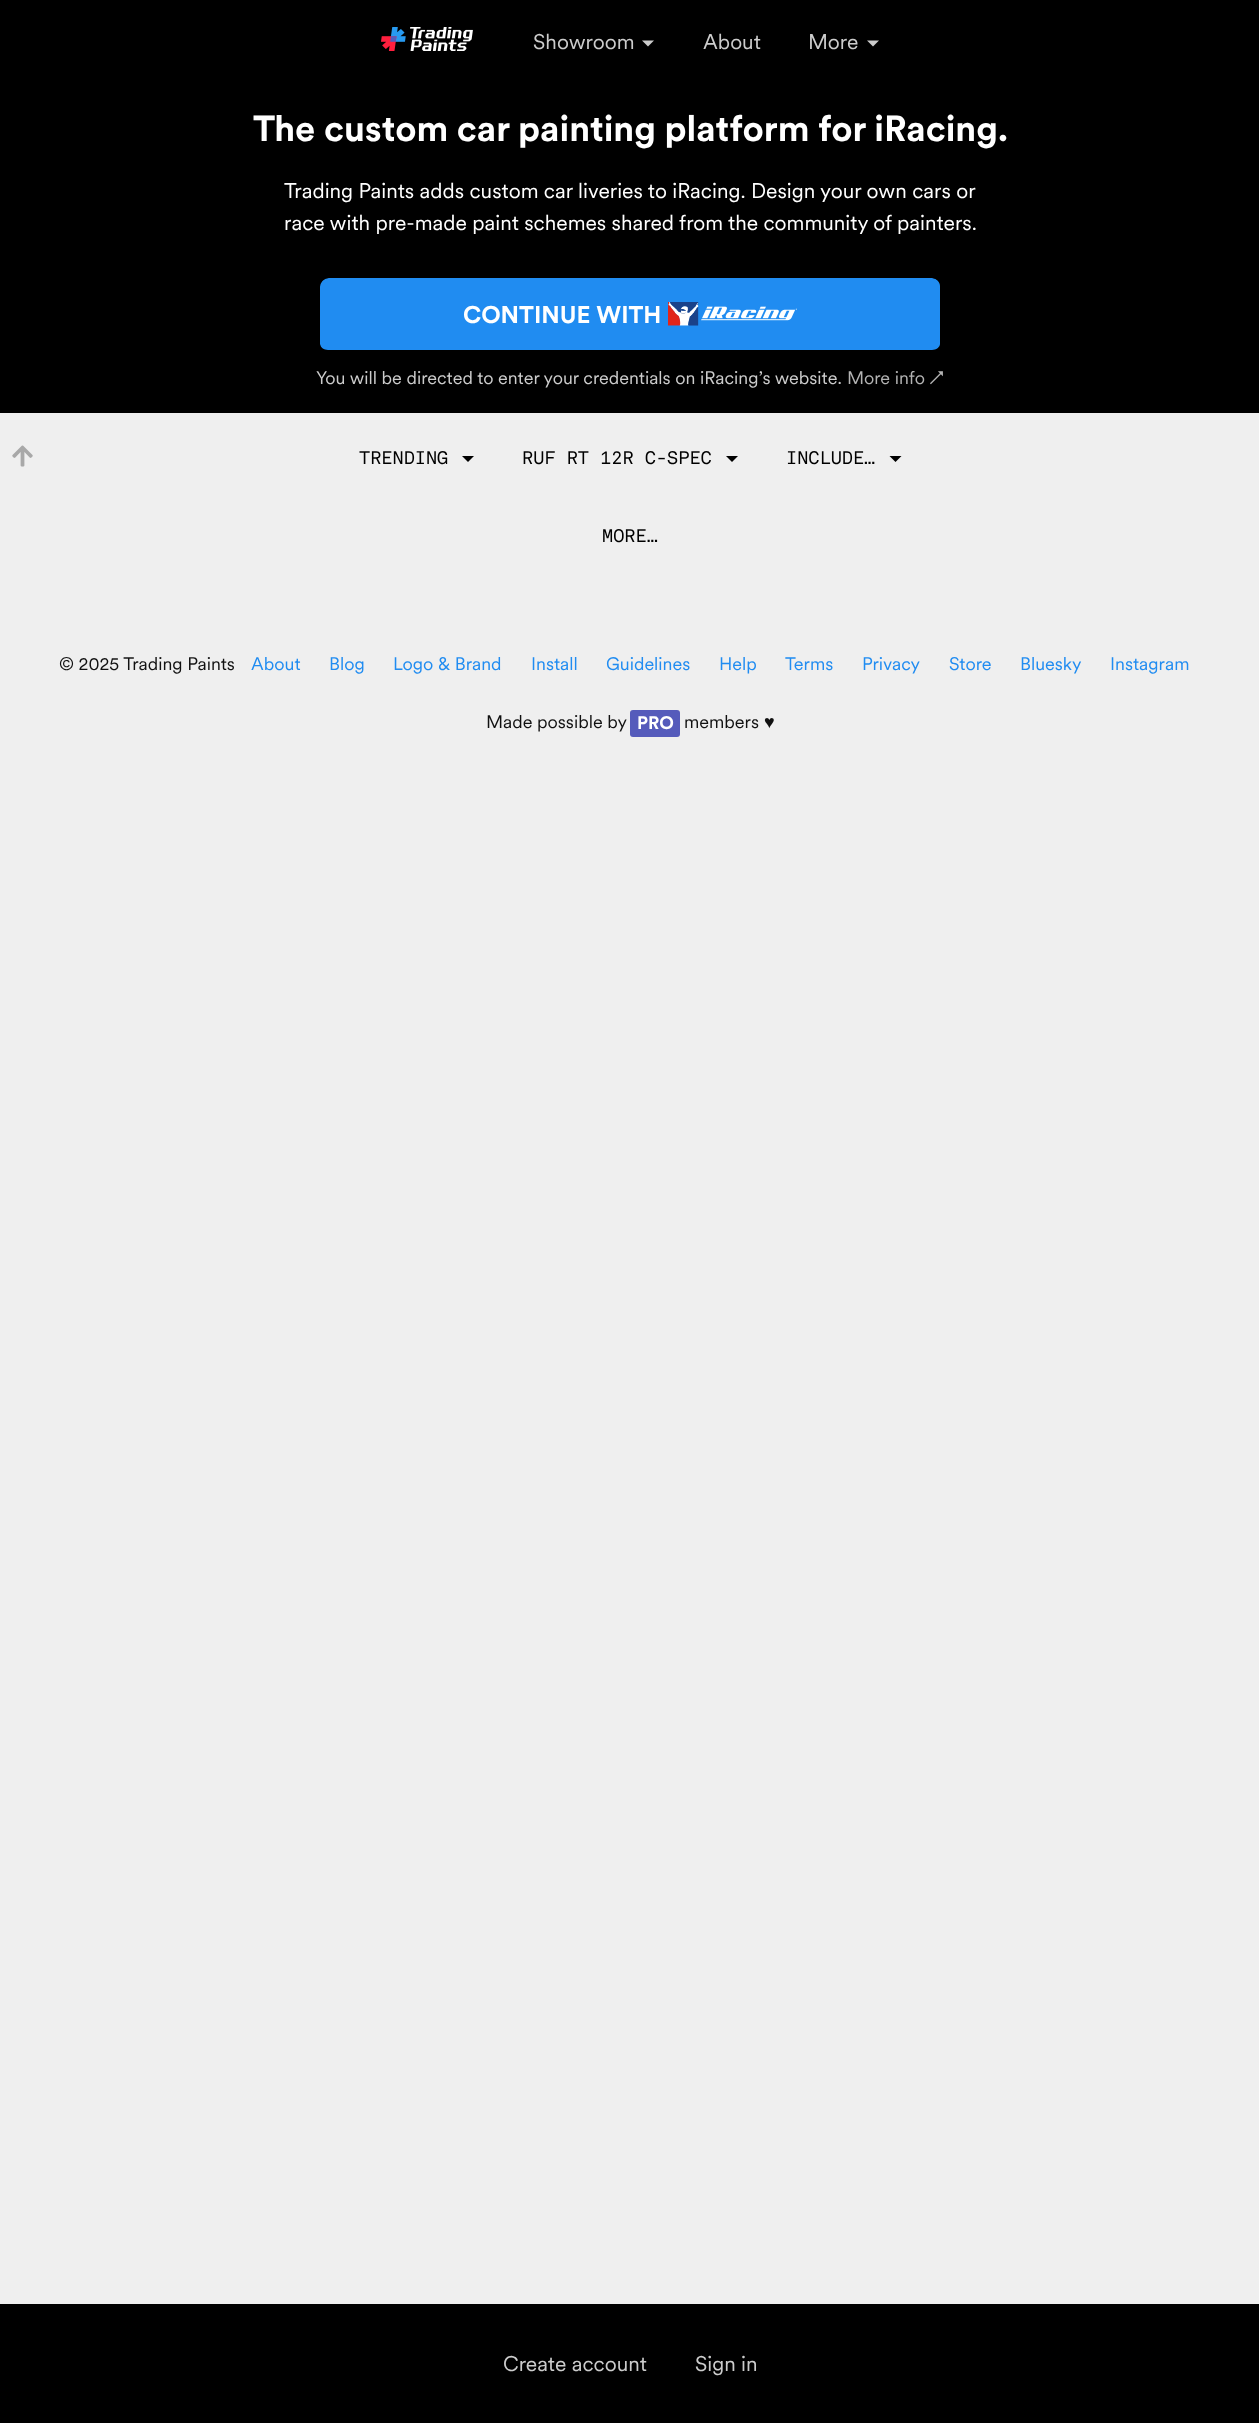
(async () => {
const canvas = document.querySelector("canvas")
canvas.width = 1259
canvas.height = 2423
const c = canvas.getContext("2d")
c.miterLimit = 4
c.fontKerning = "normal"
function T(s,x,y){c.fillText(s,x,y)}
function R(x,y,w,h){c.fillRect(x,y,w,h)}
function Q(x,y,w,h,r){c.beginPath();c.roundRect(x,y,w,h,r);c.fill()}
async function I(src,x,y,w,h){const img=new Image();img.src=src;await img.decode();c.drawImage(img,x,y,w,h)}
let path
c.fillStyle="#efefef"
R(0,0,1259,2423)
c.fillStyle="#000"
R(0,0,1259,413)
await I("1.png",381,27,92,24)
c.font="21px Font"
c.fillStyle="#ccc"
T("Showroom",533,49)
path = new Path2D("M642 40.5h12l-6 6z")
c.fill(path)
T("About",703,49)
T("More",808,49)
path = new Path2D("M867 40.5h12l-6 6z")
c.fill(path)
c.fillStyle="#000"
R(0,2304,1259,119)
c.fillStyle="#ccc"
T("Create account",503,2371)
T("Sign in",695,2371)
c.font="bold 36px Font"
c.fillStyle="#fff"
T("The custom car painting platform for iRacing.",253,141)
c.font="21px Font"
T("Trading Paints adds custom car liveries to iRacing. Design your own cars or",284,198)
T("race with pre-made paint schemes shared from the community of painters.",284,230)
c.fillStyle="#208cf1"
path = new Path2D("M328 278h604c4 0 8 4 8 8v58c0 3-4 6-8 6h-604c-4 0-8-3-8-6v-58c0-4 4-8 8-8z")
c.fill(path)
c.beginPath()
c.roundRect(318.5,276.5,624,78,10.5)
c.strokeStyle="#000"
c.lineWidth=3
c.stroke()
c.font="bold 24px Font"
c.fillStyle="#fff"
T("CONTINUE WITH",463,323)
await I("2.png",668,302,129,24)
c.font="18px Font"
c.fillStyle="#ccc"
T("You will be directed to enter your credentials on iRacing’s website.",316,384)
c.fillStyle="#b3b3b3"
T("More info ↗",847,384)
await I("3.png",12,445,21,22)
c.font="18px 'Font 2'"
c.fillStyle="#000"
T("TRENDING",359,464)
path = new Path2D("M462 456h12l-6 6z")
c.fill(path)
T("RUF RT 12R C-SPEC",522,464)
path = new Path2D("M726 456h12l-6 6z")
c.fill(path)
T("INCLUDE…",786,464)
path = new Path2D("M889.5 456h12l-6 6z")
c.fill(path)
T("MORE…",602,542)
c.font="18px Font"
c.fillStyle="#111"
T("© 2025 Trading Paints",59,670)
c.fillStyle="#208cf1"
T("About",251,670)
T("Blog",329,670)
T("Logo & Brand",393,670)
T("Install",531,670)
T("Guidelines",606,670)
T("Help",719,670)
T("Terms",785,670)
T("Privacy",862,670)
T("Store",949,670)
T("Bluesky",1020,670)
T("Instagram",1110,670)
c.fillStyle="#111"
T("Made possible by",486,728)
c.fillStyle="#555bbb"
Q(630,710,50,27,3)
c.font="bold 18px Font"
c.fillStyle="#fff"
T("PRO",637,729)
c.font="18px Font"
c.fillStyle="#111"
T("members",684,728)
c.font="18px Liberation Sans"
T("♥",764,728)
})()
